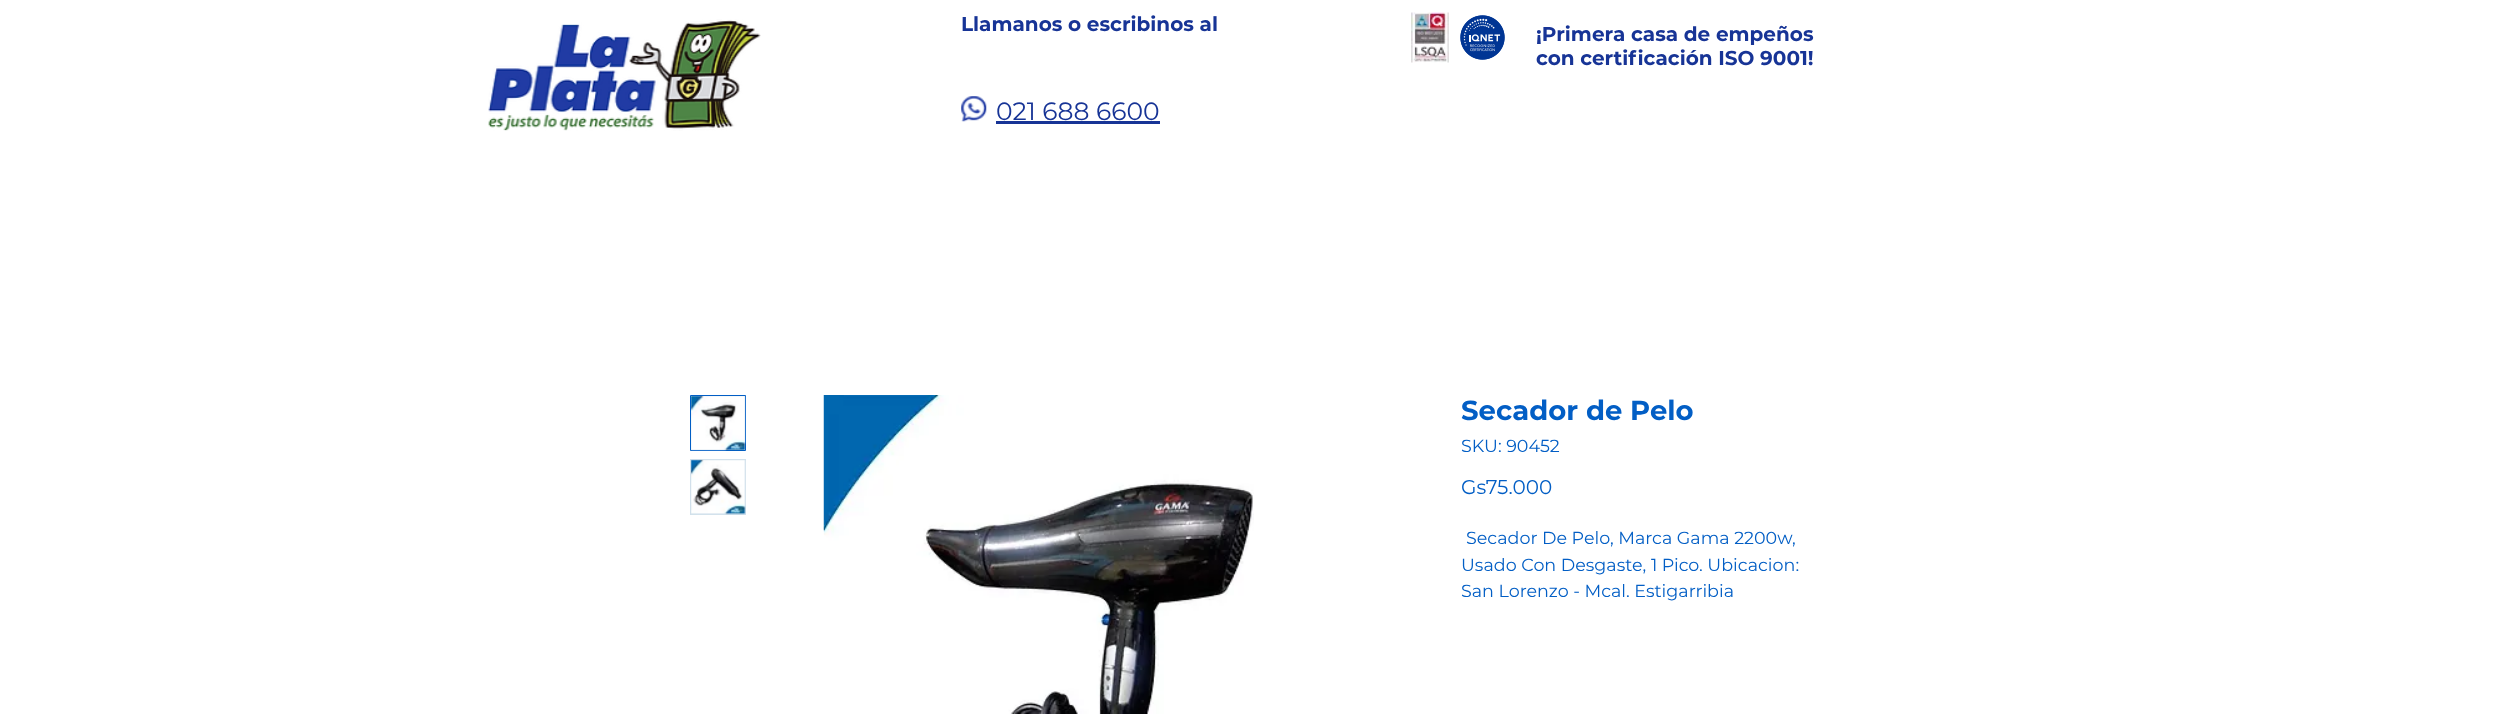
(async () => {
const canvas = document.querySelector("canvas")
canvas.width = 2497
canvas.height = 714
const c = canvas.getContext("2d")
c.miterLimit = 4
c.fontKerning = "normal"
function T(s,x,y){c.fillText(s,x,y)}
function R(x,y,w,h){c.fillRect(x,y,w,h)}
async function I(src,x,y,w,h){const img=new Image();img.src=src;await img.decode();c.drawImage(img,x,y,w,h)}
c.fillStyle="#fff"
R(0,0,2497,714)
await I("1.png",488,19,273,112)
c.font="bold 20px Montserrat"
c.fillStyle="#173496"
T("Llamanos o escribinos al",961,31)
await I("2.png",1411,12,38,51)
await I("3.png",1460,15,45,45)
T("¡Primera casa de empeños",1536,41)
T("con certificación ISO 9001!",1536,65)
await I("4.png",961,96,26,26)
c.font="25px Montserrat"
T("021 688 6600",996,120)
R(996,121,164,3)
c.fillStyle="#d1e0eb"
c.beginPath()
c.rect(690.5,395.5,55,55)
c.fill()
c.strokeStyle="#025ec5"
c.stroke()
await I("5.png",691,396,55,55)
R(690,459,56,56)
await I("6.png",691,459,55,56)
await I("7.png",823,395,431,319)
c.font="bold 27.5px Montserrat"
c.fillStyle="#025ec5"
T("Secador de Pelo",1461,420)
c.font="17.5px Montserrat"
T("SKU: 90452",1461,452)
c.font="20px Montserrat"
T("Gs75.000",1461,494)
c.font="17.5px Montserrat"
T("Secador De Pelo, Marca Gama 2200w,",1466,544)
T("Usado Con Desgaste, 1 Pico. Ubicacion:",1461,571)
T("San Lorenzo - Mcal. Estigarribia",1461,597)
})()
